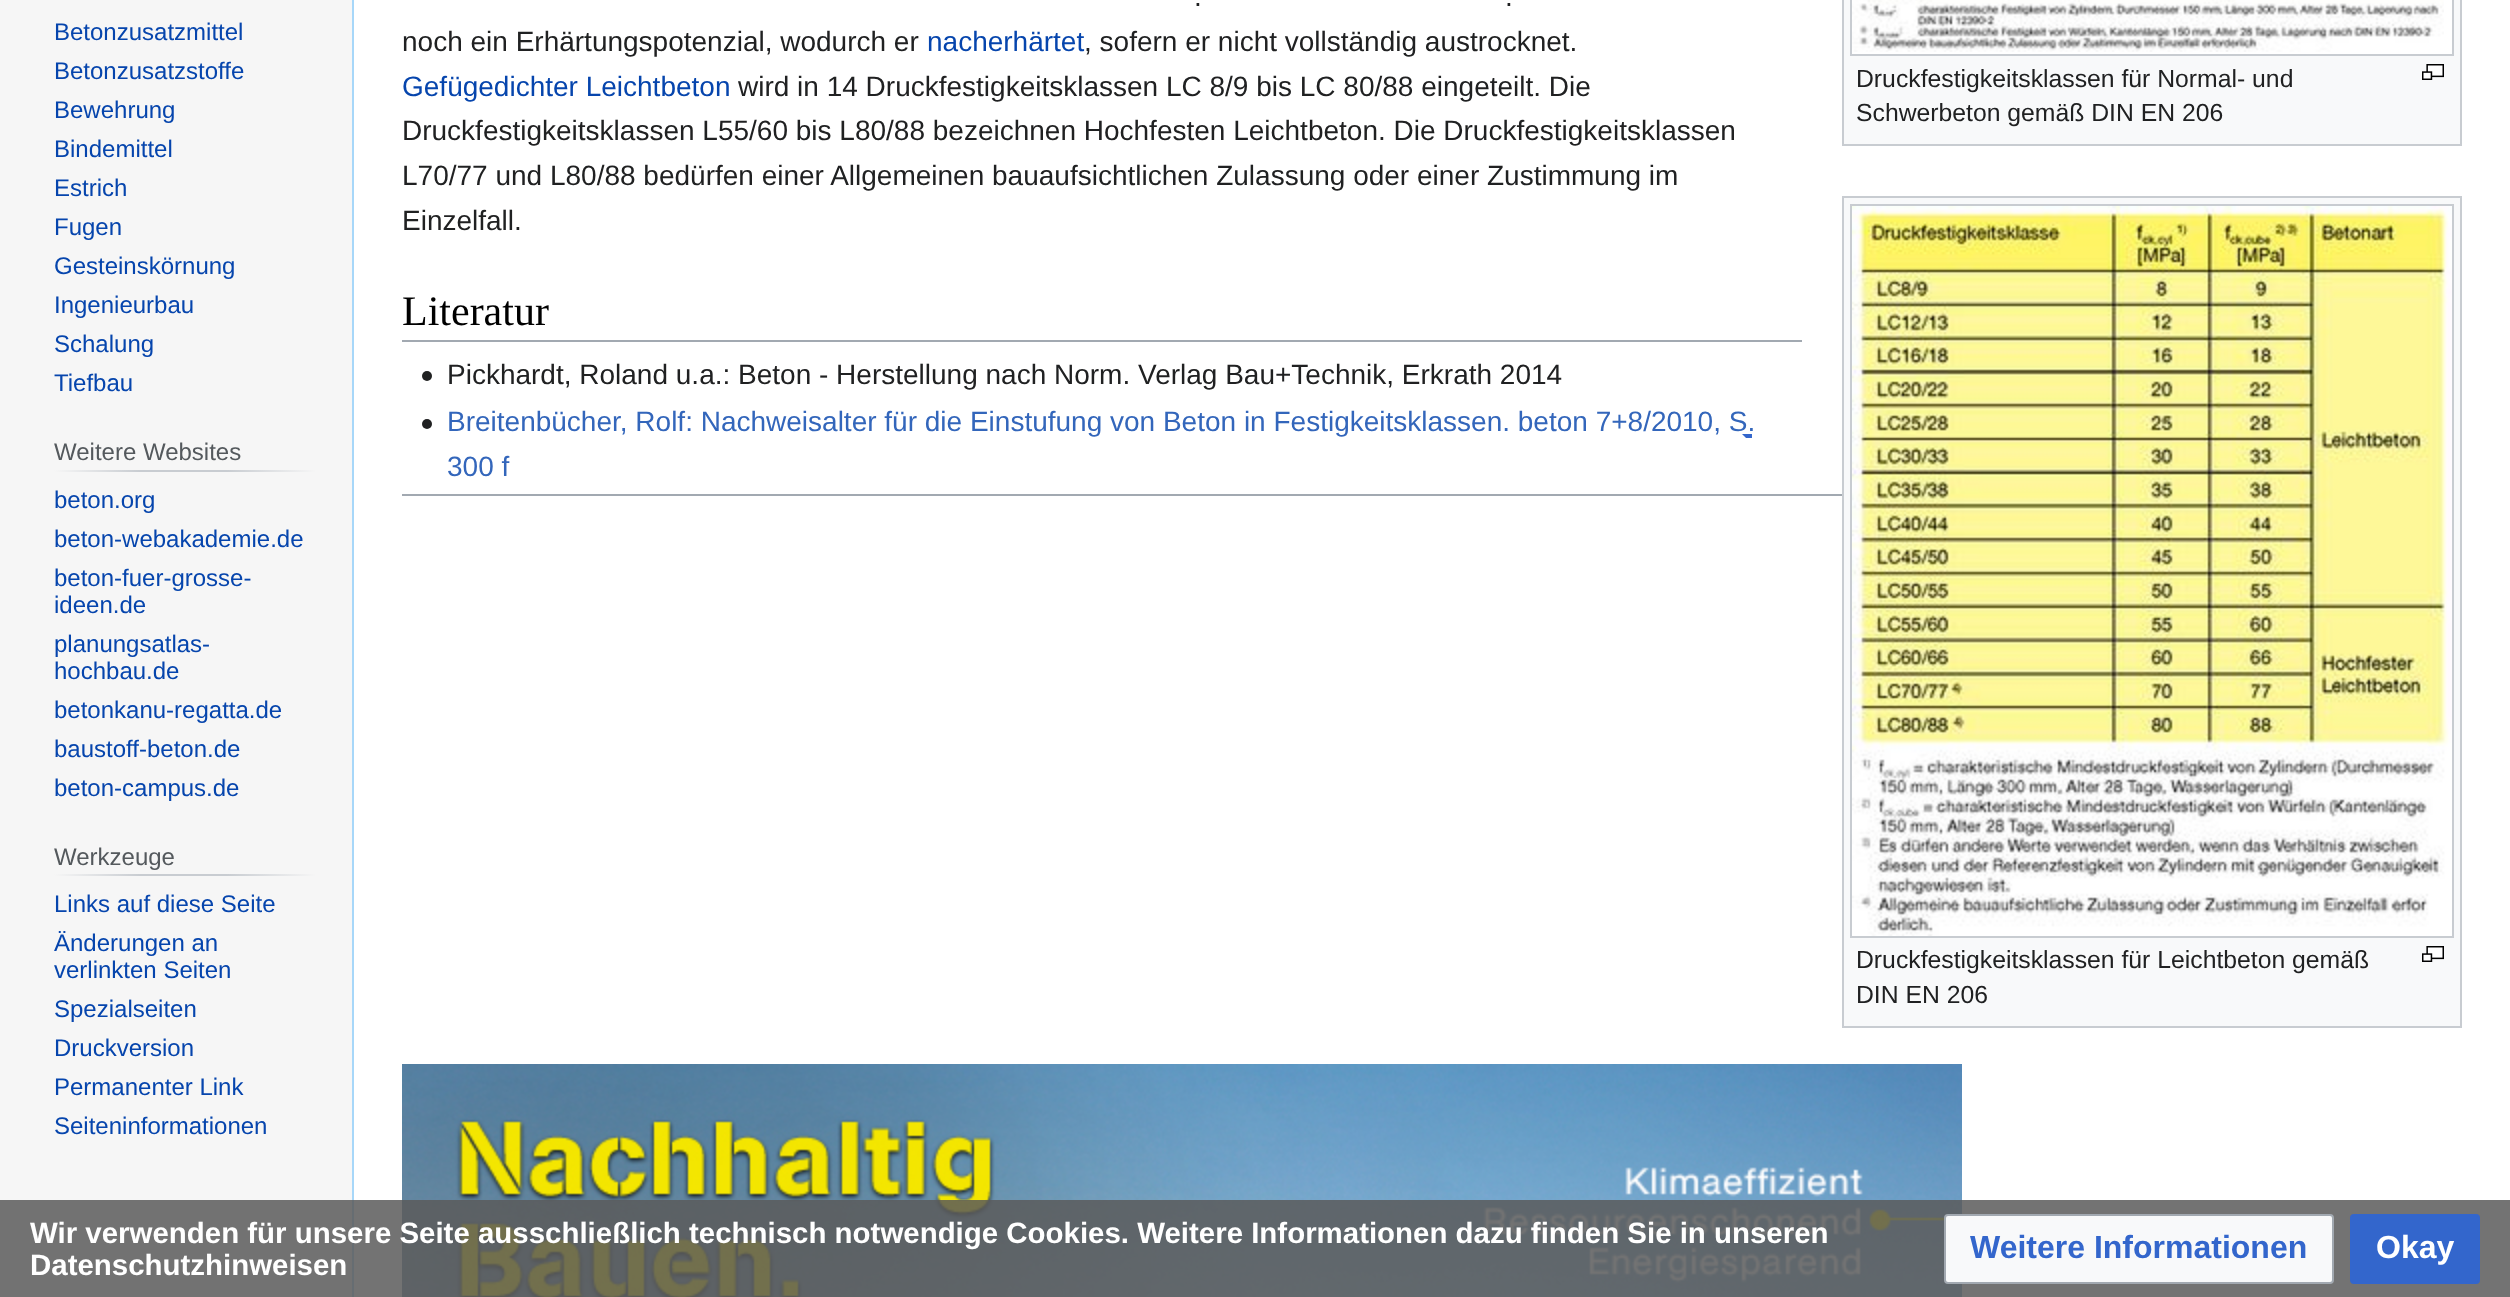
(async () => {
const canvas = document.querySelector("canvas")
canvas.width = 2510
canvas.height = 1297
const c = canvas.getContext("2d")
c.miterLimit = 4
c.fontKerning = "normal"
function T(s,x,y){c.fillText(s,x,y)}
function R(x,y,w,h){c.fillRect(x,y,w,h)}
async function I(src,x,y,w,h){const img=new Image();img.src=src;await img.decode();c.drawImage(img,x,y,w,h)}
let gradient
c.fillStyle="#f6f6f6"
R(0,0,2510,1297)
c.font="24px Liberation Sans"
c.fillStyle="#0645ad"
T("Betonzusatzmittel",54,40)
T("Betonzusatzstoffe",54,79)
T("Bewehrung",54,118)
T("Bindemittel",54,157)
T("Estrich",54,196)
T("Fugen",54,235)
T("Gesteinskörnung",54,274)
T("Ingenieurbau",54,313)
T("Schalung",54,352)
T("Tiefbau",54,391)
gradient = c.createLinearGradient(54,471,316,471)
gradient.addColorStop(0,"#f6f6f6")
gradient.addColorStop(.33,"#c8ccd1")
gradient.addColorStop(.66,"#c8ccd1")
gradient.addColorStop(1,"#f6f6f6")
c.fillStyle = gradient
R(54,470,262,2)
c.fillStyle="#54595d"
T("Weitere Websites",54,460)
c.fillStyle="#0645ad"
T("beton.org",54,508)
T("beton-webakademie.de",54,547)
T("beton-fuer-grosse-",54,586)
T("ideen.de",54,613)
T("planungsatlas-",54,652)
T("hochbau.de",54,679)
T("betonkanu-regatta.de",54,718)
T("baustoff-beton.de",54,757)
T("beton-campus.de",54,796)
gradient = c.createLinearGradient(54,875,316,875)
gradient.addColorStop(0,"#f6f6f6")
gradient.addColorStop(.33,"#c8ccd1")
gradient.addColorStop(.66,"#c8ccd1")
gradient.addColorStop(1,"#f6f6f6")
c.fillStyle = gradient
R(54,874,262,2)
c.fillStyle="#54595d"
T("Werkzeuge",54,865)
c.fillStyle="#0645ad"
T("Links auf diese Seite",54,912)
T("Änderungen an",54,951)
T("verlinkten Seiten",54,978)
T("Spezialseiten",54,1017)
T("Druckversion",54,1056)
T("Permanenter Link",54,1095)
T("Seiteninformationen",54,1134)
c.fillStyle="#fff"
R(354,0,2156,1297)
c.fillStyle="#a7d7f9"
R(352,0,2,1297)
c.font="28px Liberation Sans"
c.fillStyle="#202122"
T(".",1194,6)
T(".",1505,6)
T("noch ein Erhärtungspotenzial, wodurch er",402,51)
c.fillStyle="#0645ad"
T("nacherhärtet",927,51)
c.fillStyle="#202122"
T(", sofern er nicht vollständig austrocknet.",1084,51)
c.fillStyle="#0645ad"
T("Gefügedichter Leichtbeton",402,96)
c.fillStyle="#202122"
T("wird in 14 Druckfestigkeitsklassen LC 8/9 bis LC 80/88 eingeteilt. Die",738,96)
T("Druckfestigkeitsklassen L55/60 bis L80/88 bezeichnen Hochfesten Leichtbeton. Die Druckfestigkeitsklassen",402,140)
T("L70/77 und L80/88 bedürfen einer Allgemeinen bauaufsichtlichen Zulassung oder einer Zustimmung im",402,185)
T("Einzelfall.",402,230)
c.fillStyle="#f8f9fa"
R(1844,0,616,144)
c.fillStyle="#c8ccd1"
R(1842,144,620,2)
R(2460,0,2,146)
R(1842,0,2,146)
c.fillStyle="#fff"
c.beginPath()
c.rect(1851,-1,602,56)
c.fill()
c.strokeStyle="#c8ccd1"
c.lineWidth=2
c.stroke()
await I("1.png",1852,0,592,52)
await I("2.png",2422,64,22,16)
c.font="24.75px Liberation Sans"
c.fillStyle="#202122"
T("Druckfestigkeitsklassen für Normal- und",1856,87)
T("Schwerbeton gemäß DIN EN 206",1856,121)
c.fillStyle="#a2a9b1"
R(402,340,1400,2)
c.font="42px Liberation Serif"
c.fillStyle="#000"
T("Literatur",402,325)
await I("3.png",422,371,10,10)
c.font="28px Liberation Sans"
c.fillStyle="#202122"
T("Pickhardt, Roland u.a.: Beton - Herstellung nach Norm. Verlag Bau+Technik, Erkrath 2014",447,384)
await I("3.png",422,419,10,10)
await I("4.png",1742,434,10,4)
c.fillStyle="#36b"
T("Breitenbücher, Rolf: Nachweisalter für die Einstufung von Beton in Festigkeitsklassen. beton 7+8/2010, S.",447,431)
T("300 f",447,476)
c.fillStyle="#f8f9fa"
R(1844,198,616,828)
c.fillStyle="#c8ccd1"
R(1842,196,620,2)
R(1842,1026,620,2)
R(2460,196,2,832)
R(1842,196,2,832)
c.strokeRect(1851,205,602,732)
await I("5.png",1852,206,600,730)
await I("2.png",2422,946,22,16)
c.font="24.75px Liberation Sans"
c.fillStyle="#202122"
T("Druckfestigkeitsklassen für Leichtbeton gemäß",1856,968)
T("DIN EN 206",1856,1003)
c.fillStyle="#a2a9b1"
R(402,494,1440,2)
await I("6.png",402,1064,1560,233)
c.fillStyle="#5a5a5ad9"
R(0,1200,2510,97)
c.font="bold 29.45px Liberation Sans"
c.fillStyle="#fff"
T("Wir verwenden für unsere Seite ausschließlich technisch notwendige Cookies. Weitere Informationen dazu finden Sie in unseren",30,1243)
T("Datenschutzhinweisen",30,1275)
c.fillStyle="#f8f9fa"
c.beginPath()
c.roundRect(1945,1215,388,68,3)
c.fill()
c.strokeStyle="#a2a9b1"
c.stroke()
c.font="bold 32px Liberation Sans"
c.fillStyle="#36c"
T("Weitere Informationen",1970,1258)
c.beginPath()
c.roundRect(2351,1215,128,68,3)
c.fill()
c.strokeStyle="#36c"
c.stroke()
c.fillStyle="#fff"
T("Okay",2376,1258)
})()
